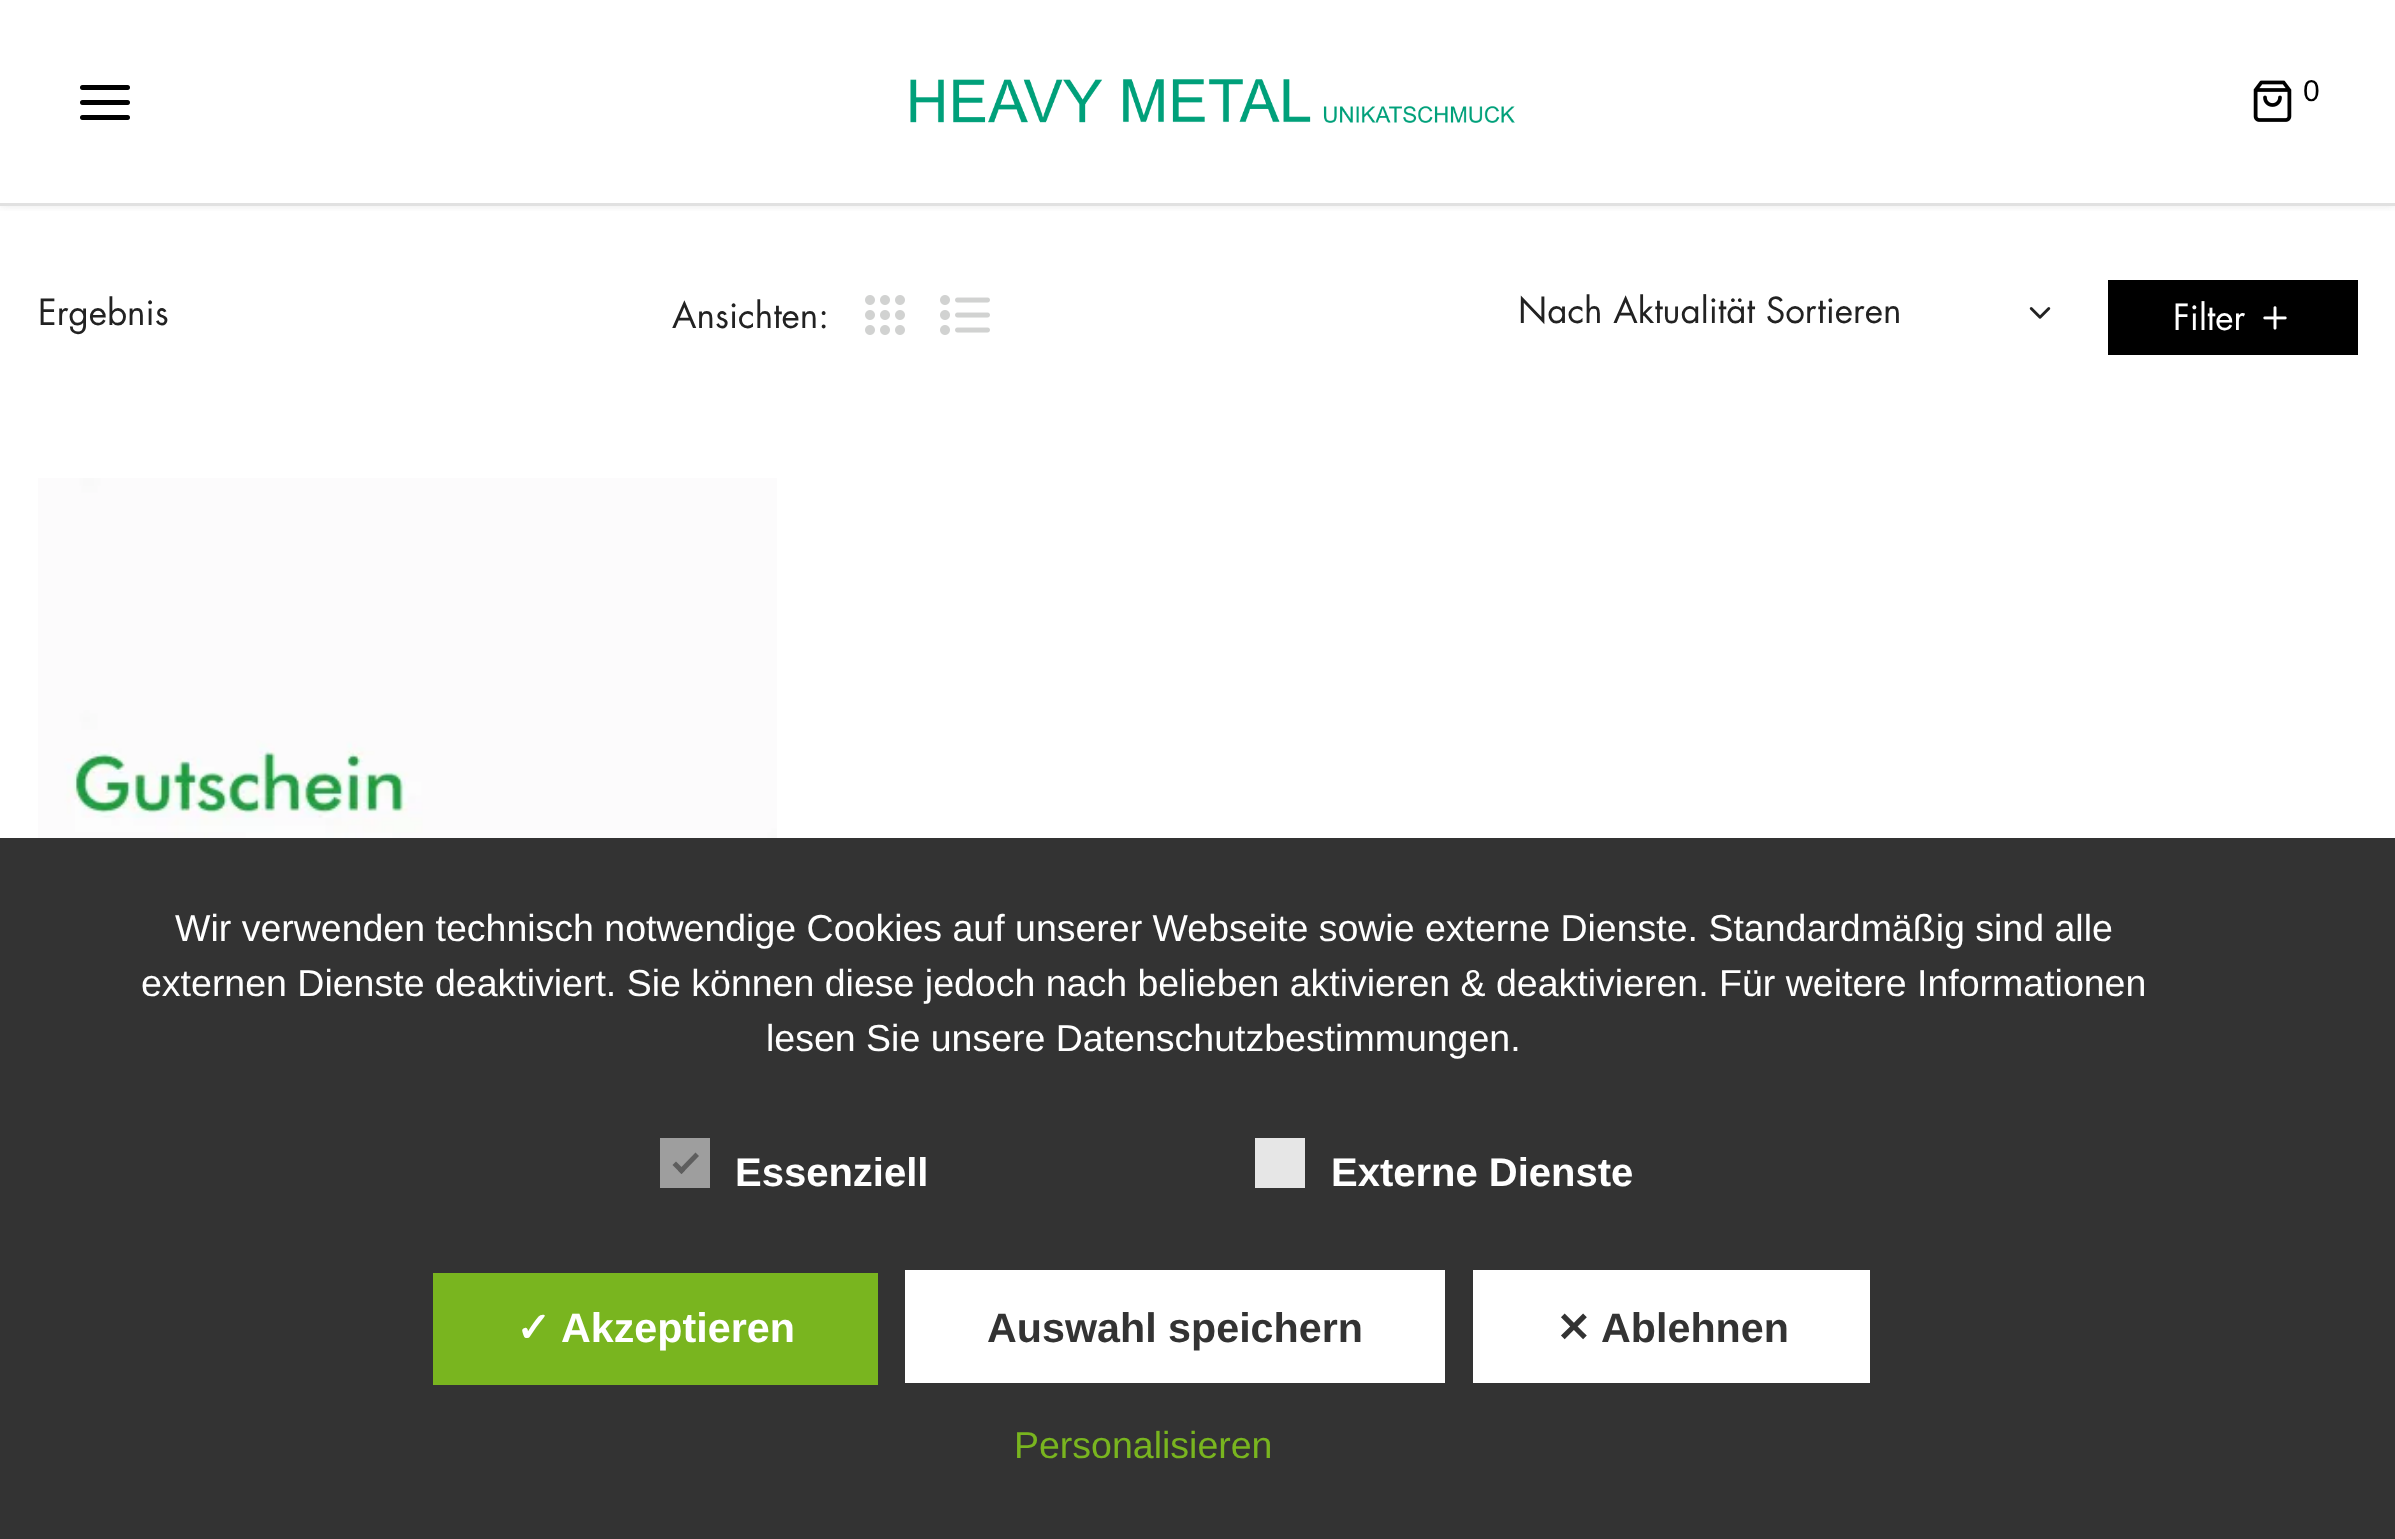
(async () => {
const canvas = document.querySelector("canvas")
canvas.width = 2395
canvas.height = 1539
const c = canvas.getContext("2d")
c.miterLimit = 4
c.fontKerning = "normal"
function T(s,x,y){c.fillText(s,x,y)}
function R(x,y,w,h){c.fillRect(x,y,w,h)}
async function I(src,x,y,w,h){const img=new Image();img.src=src;await img.decode();c.drawImage(img,x,y,w,h)}
let path
c.fillStyle="#fff"
R(0,0,2395,1539)
c.save()
c.beginPath()
c.rect(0,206,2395,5)
c.clip()
c.fillStyle="#73737333"
c.filter="blur(5px)"
c.beginPath()
c.rect(0,0,2395,205)
c.fill()
c.filter="none"
c.restore()
c.fillStyle="#e1e1e1"
R(0,203,2395,3)
await I("1.png",80,85,50,35)
await I("2.png",910,79,605,44)
await I("3.png",2253,80,39,42)
c.font="30px Liberation Sans"
c.fillStyle="#000"
T("0",2303,101)
c.font="35px Futura"
c.fillStyle="#222"
T("Ergebnis",38,325)
T("Ansichten:",672,328)
await I("4.png",865,295,40,40)
await I("5.png",940,295,50,40)
T("Nach Aktualität Sortieren",1518,323)
await I("6.png",2029,307,22,12)
c.fillStyle="#000"
R(2108,280,250,75)
c.fillStyle="#fff"
T("Filter",2173,330)
await I("7.png",2263,306,24,24)
await I("8.png",38,478,739,360)
c.fillStyle="#333"
R(0,838,2395,701)
c.font="37.5px Liberation Sans"
c.fillStyle="#fff"
T("Wir verwenden technisch notwendige Cookies auf unserer Webseite sowie externe Dienste. Standardmäßig sind alle",175,941)
T("externen Dienste deaktiviert. Sie können diese jedoch nach belieben aktivieren & deaktivieren. Für weitere Informationen",141,996)
T("lesen Sie unsere Datenschutzbestimmungen.",766,1051)
c.fillStyle="#9e9e9e"
R(660,1138,50,50)
c.fillStyle="#5e5e5e"
path = new Path2D("M695.5 1152.5l3.5 3.5l-17.5 18l-3.5-3.5z")
c.fill(path)
path = new Path2D("M676 1161.5l9 9l-3.5 3.5l-9-9z")
c.fill(path)
c.font="bold 40px Liberation Sans"
c.fillStyle="#fff"
T("Essenziell",735,1186)
c.fillStyle="#e6e6e6"
R(1255,1138,50,50)
c.fillStyle="#fff"
T("Externe Dienste",1331,1186)
c.fillStyle="#79b51f"
R(433,1273,445,112)
c.font="bold 41.25px DejaVu Sans"
c.fillStyle="#fff"
T("✓",516,1342)
c.font="bold 41.25px Liberation Sans"
T("Akzeptieren",561,1342)
R(905,1270,540,113)
c.fillStyle="#333"
T("Auswahl speichern",987,1342)
c.fillStyle="#fff"
R(1473,1270,397,113)
c.font="bold 41.25px DejaVu Sans"
c.fillStyle="#333"
T("✕",1556,1342)
c.font="bold 41.25px Liberation Sans"
T("Ablehnen",1601,1342)
c.font="37.5px Liberation Sans"
c.fillStyle="#79b51f"
T("Personalisieren",1014,1458)
})()
